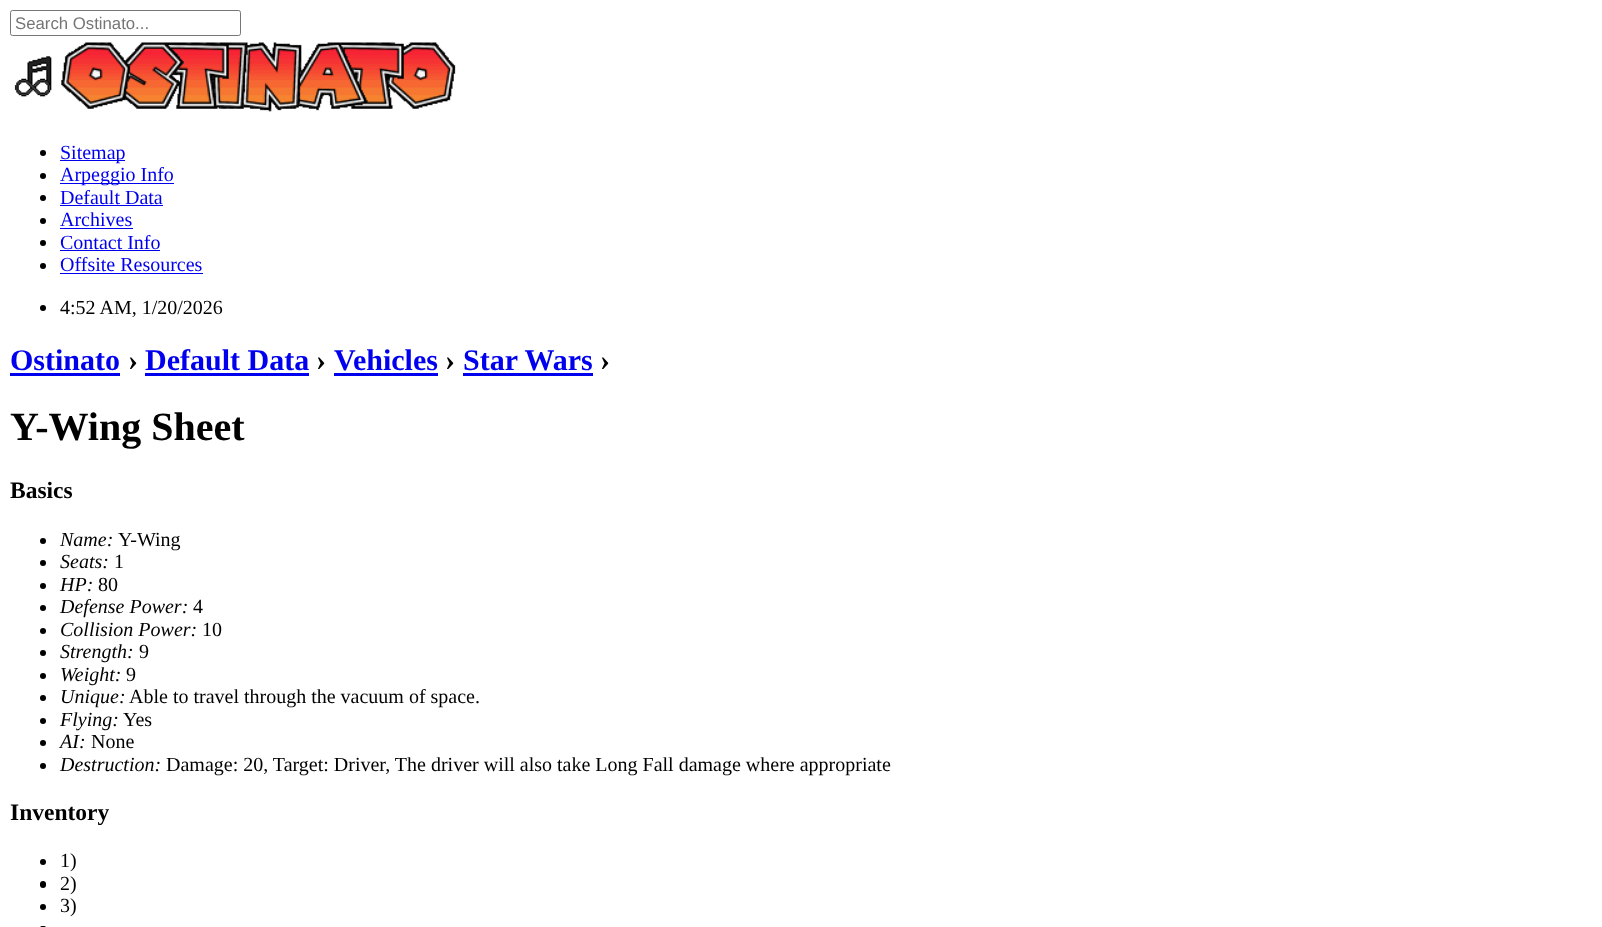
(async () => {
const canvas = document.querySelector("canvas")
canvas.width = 1602
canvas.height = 927
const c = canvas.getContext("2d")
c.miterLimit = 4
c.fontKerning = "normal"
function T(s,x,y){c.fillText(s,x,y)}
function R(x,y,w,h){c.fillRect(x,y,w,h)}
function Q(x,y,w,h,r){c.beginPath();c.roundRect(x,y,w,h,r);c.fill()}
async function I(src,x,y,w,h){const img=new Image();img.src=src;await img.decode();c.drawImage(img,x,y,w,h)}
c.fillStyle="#fff"
R(0,0,1602,927)
c.beginPath()
c.roundRect(10.5,10.5,230,25,2)
c.strokeStyle="#767676"
c.stroke()
c.font="16.75px Liberation Sans"
c.fillStyle="#757575"
T("Search Ostinato...",15,29)
await I("1.png",14,42,442,70)
c.fillStyle="#000"
c.beginPath()
c.arc(43,153,3,0,7)
c.fill()
c.fillStyle="#00e"
R(60,160,65,1)
c.font="20px Liberation Serif"
T("Sitemap",60,159)
c.fillStyle="#000"
c.beginPath()
c.arc(43,176,3,0,7)
c.fill()
c.fillStyle="#00e"
R(60,183,114,1)
T("Arpeggio Info",60,181)
c.fillStyle="#000"
c.beginPath()
c.arc(43,198,3,0,7)
c.fill()
c.fillStyle="#00e"
T("Default Data",60,204)
R(60,205,103,1)
c.fillStyle="#000"
c.beginPath()
c.arc(43,221,3,0,7)
c.fill()
c.fillStyle="#00e"
T("Archives",60,226)
R(60,228,73,1)
c.fillStyle="#000"
c.beginPath()
c.arc(43,243,3,0,7)
c.fill()
c.fillStyle="#00e"
T("Contact Info",60,249)
R(60,250,100,1)
c.fillStyle="#000"
c.beginPath()
c.arc(43,266,3,0,7)
c.fill()
c.fillStyle="#00e"
T("Offsite Resources",60,271)
R(60,273,143,1)
c.fillStyle="#000"
c.beginPath()
c.arc(43,308,3,0,7)
c.fill()
T("4:52 AM, 1/20/2026",60,314)
c.font="bold 30px Liberation Serif"
c.fillStyle="#00e"
T("Ostinato",10,370)
R(10,373,110,3)
c.fillStyle="#000"
T("›",128,370)
c.fillStyle="#00e"
T("Default Data",145,370)
R(145,373,164,3)
c.fillStyle="#000"
T("›",316,370)
c.fillStyle="#00e"
T("Vehicles",334,370)
R(334,373,104,3)
c.fillStyle="#000"
T("›",445,370)
c.fillStyle="#00e"
T("Star Wars",463,370)
R(463,373,130,3)
c.fillStyle="#000"
T("›",600,370)
c.font="bold 40px Liberation Serif"
T("Y-Wing Sheet",10,440)
c.font="bold 23.5px Liberation Serif"
T("Basics",10,498)
c.beginPath()
c.arc(43,541,3,0,7)
c.fill()
c.font="italic 20px Liberation Serif"
T("Name:",60,546)
c.font="20px Liberation Serif"
T("Y-Wing",118,546)
c.beginPath()
c.arc(43,563,3,0,7)
c.fill()
c.font="italic 20px Liberation Serif"
T("Seats:",60,568)
c.font="20px Liberation Serif"
T("1",114,568)
c.beginPath()
c.arc(43,586,3,0,7)
c.fill()
c.font="italic 20px Liberation Serif"
T("HP:",60,591)
c.font="20px Liberation Serif"
T("80",98,591)
c.beginPath()
c.arc(43,608,3,0,7)
c.fill()
c.font="italic 20px Liberation Serif"
T("Defense Power:",60,613)
c.font="20px Liberation Serif"
T("4",193,613)
c.beginPath()
c.arc(43,631,3,0,7)
c.fill()
c.font="italic 20px Liberation Serif"
T("Collision Power:",60,636)
c.font="20px Liberation Serif"
T("10",202,636)
c.beginPath()
c.arc(43,653,3,0,7)
c.fill()
c.font="italic 20px Liberation Serif"
T("Strength:",60,658)
c.font="20px Liberation Serif"
T("9",139,658)
c.beginPath()
c.arc(43,676,3,0,7)
c.fill()
c.font="italic 20px Liberation Serif"
T("Weight:",60,681)
c.font="20px Liberation Serif"
T("9",126,681)
c.beginPath()
c.arc(43,698,3,0,7)
c.fill()
c.font="italic 20px Liberation Serif"
T("Unique:",60,703)
c.font="20px Liberation Serif"
T("Able to travel through the vacuum of space.",129,703)
c.beginPath()
c.arc(43,721,3,0,7)
c.fill()
c.font="italic 20px Liberation Serif"
T("Flying:",60,726)
c.font="20px Liberation Serif"
T("Yes",123,726)
c.beginPath()
c.arc(43,743,3,0,7)
c.fill()
c.font="italic 20px Liberation Serif"
T("AI:",60,748)
c.font="20px Liberation Serif"
T("None",91,748)
c.beginPath()
c.arc(43,766,3,0,7)
c.fill()
c.font="italic 20px Liberation Serif"
T("Destruction:",60,771)
c.font="20px Liberation Serif"
T("Damage: 20, Target: Driver, The driver will also take Long Fall damage where appropriate",166,771)
c.font="bold 23.5px Liberation Serif"
T("Inventory",10,820)
c.beginPath()
c.arc(43,862,3,0,7)
c.fill()
c.font="20px Liberation Serif"
T("1)",60,867)
Q(40,881,6,7,3)
T("2)",60,890)
c.beginPath()
c.arc(43,907,3,0,7)
c.fill()
T("3)",60,912)
Q(40,926,6,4,3)
})()
